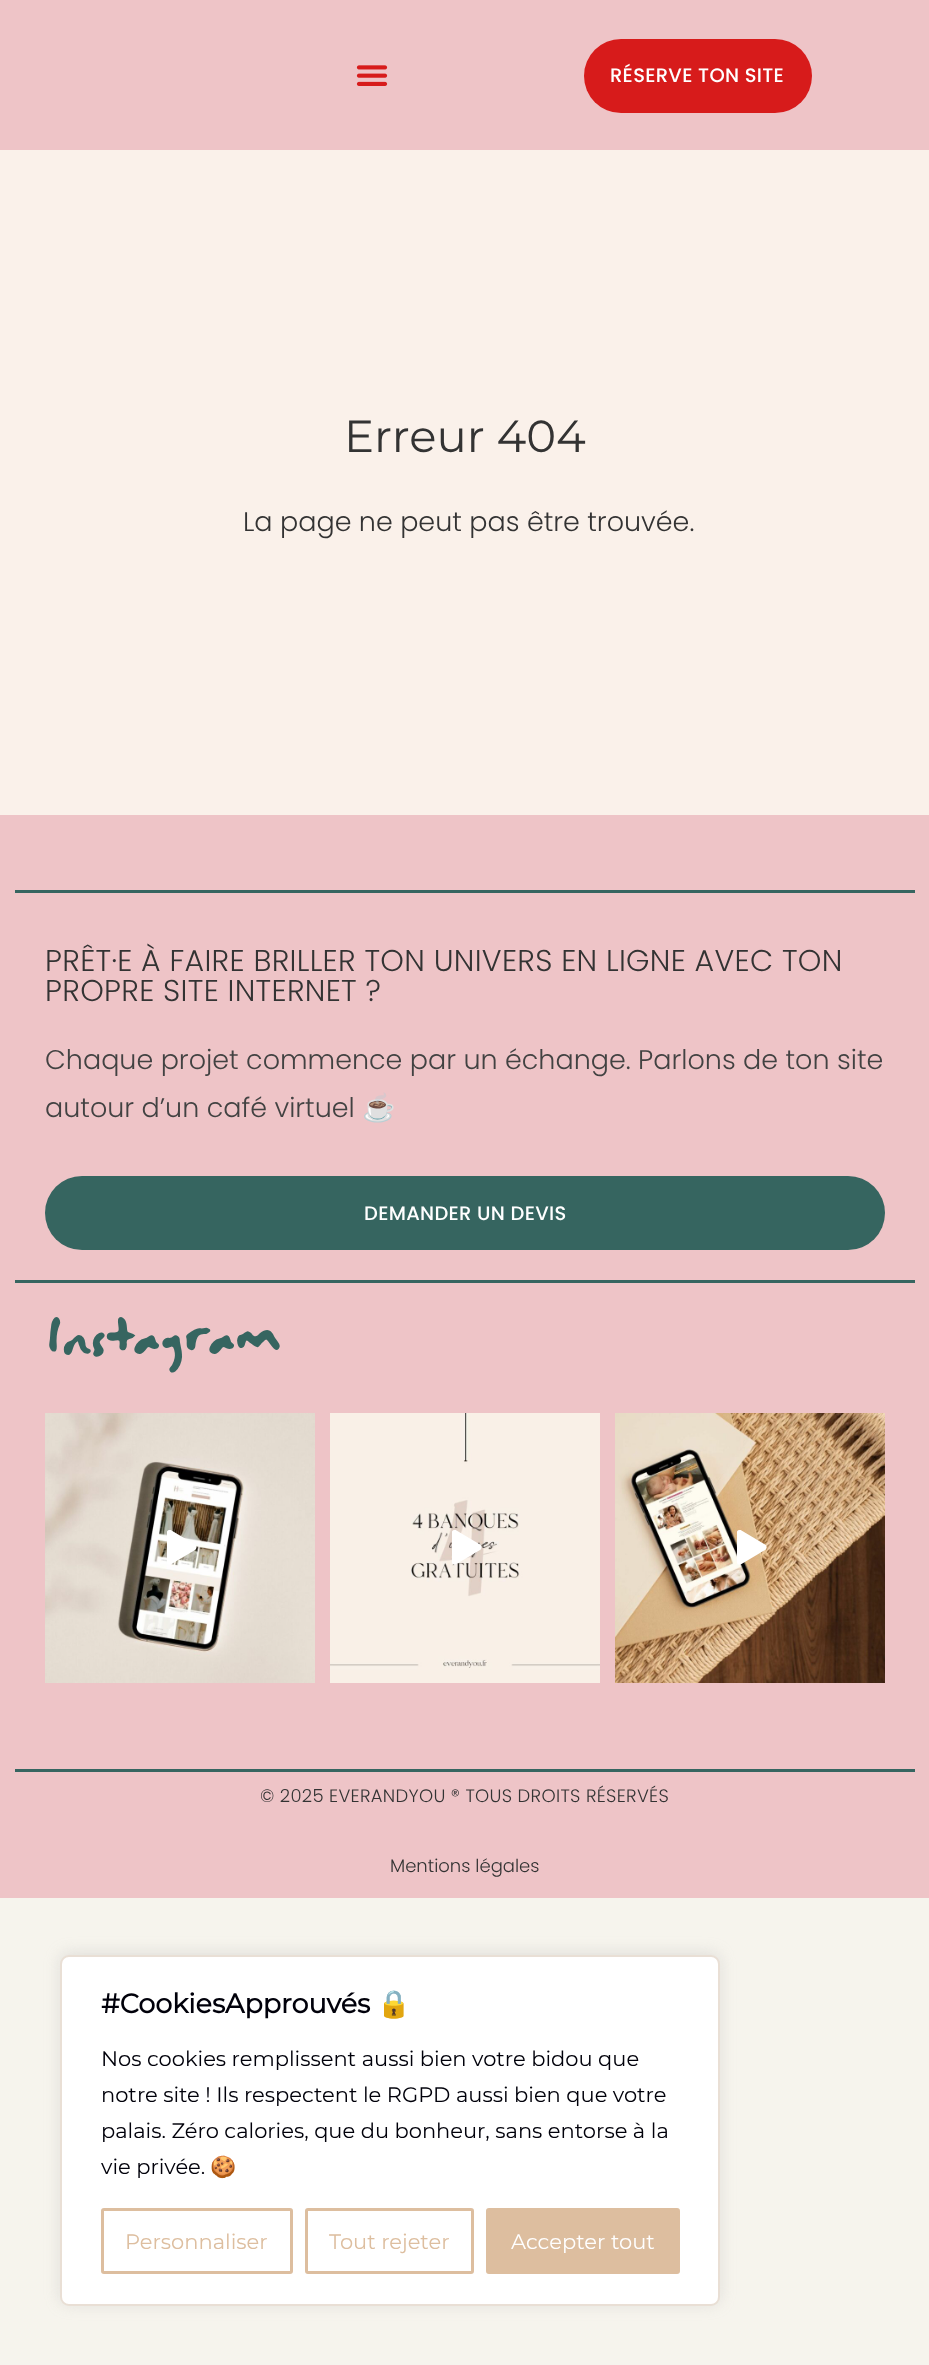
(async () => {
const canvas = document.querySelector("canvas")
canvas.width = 929
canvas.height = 2365
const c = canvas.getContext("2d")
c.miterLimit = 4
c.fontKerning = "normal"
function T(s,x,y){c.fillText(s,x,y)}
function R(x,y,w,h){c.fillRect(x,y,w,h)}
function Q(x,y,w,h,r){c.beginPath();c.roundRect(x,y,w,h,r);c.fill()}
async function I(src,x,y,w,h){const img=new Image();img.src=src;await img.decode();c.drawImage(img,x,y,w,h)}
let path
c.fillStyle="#f6f4ed"
R(0,0,929,2365)
c.fillStyle="#eec4c7"
R(0,0,929,150)
await I("1.png",356,65,32,21)
c.fillStyle="#d71b1b"
Q(584,39,228,74,37)
c.letterSpacing="0.3px"
c.font="500 19.5px Poppins"
c.fillStyle="#fff"
T("RÉSERVE TON SITE",610,82)
c.fillStyle="#faf1ea"
R(0,150,929,665)
c.letterSpacing="0px"
c.font="100 45px Montserrat"
c.fillStyle="#333"
T("Erreur 404",344,452)
c.font="300 27px Poppins"
T("La page ne peut pas être trouvée.",243,531)
c.fillStyle="#eec4c7"
R(0,815,929,1083)
c.fillStyle="#366560"
R(15,890,900,3)
R(15,1769,900,3)
R(15,1280,900,3)
c.letterSpacing="0.3px"
c.font="300 30px Poppins"
c.fillStyle="#333"
T("PRÊT·E À FAIRE BRILLER TON UNIVERS EN LIGNE AVEC TON",45,971)
T("PROPRE SITE INTERNET ?",45,1001)
c.letterSpacing="0px"
c.font="300 27px Poppins"
c.fillStyle="#424242"
T("Chaque projet commence par un échange. Parlons de ton site",45,1069)
T("autour d’un café virtuel",45,1117)
c.font="27px Noto Color Emoji"
T("☕",362,1117)
c.fillStyle="#366560"
Q(45,1176,840,74,37)
c.letterSpacing="0.3px"
c.font="500 19.5px Poppins"
c.fillStyle="#fff"
T("DEMANDER UN DEVIS",364,1220)
c.letterSpacing="0px"
c.font="52.5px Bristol"
c.fillStyle="#366560"
T("Instagram",45,1352)
await I("2.png",45,1413,270,270)
c.save()
c.beginPath()
c.rect(167,1530,30,35)
c.clip()
c.fillStyle="#fff"
path = new Path2D("M195 1544.5l-23.5-14c-2-1-5 0-5 2.5v28.5c0 2.5 2.5 4 5 2.5l23.5-14c2-1 2-4.5 0-5.5z")
c.fill(path)
c.restore()
await I("3.png",330,1413,270,270)
c.save()
c.beginPath()
c.rect(452,1530,30,35)
c.clip()
c.fillStyle="#fff"
path = new Path2D("M480 1544.5l-23.5-14c-2-1-5 0-5 2.5v28.5c0 2.5 2.5 4 5 2.5l23.5-14c2-1 2-4.5 0-5.5z")
c.fill(path)
c.restore()
await I("4.png",615,1413,270,270)
c.save()
c.beginPath()
c.rect(737,1530,30,35)
c.clip()
c.fillStyle="#fff"
path = new Path2D("M765 1544.5l-23.5-14c-2-1-5 0-5 2.5v28.5c0 2.5 2.5 4 5 2.5l23.5-14c2-1 2-4.5 0-5.5z")
c.fill(path)
c.restore()
c.letterSpacing="0.3px"
c.font="300 18px Poppins"
c.fillStyle="#333"
T("© 2025 EVERANDYOU ® TOUS DROITS RÉSERVÉS",260,1802)
c.letterSpacing="0px"
T("Mentions légales",390,1872)
c.fillStyle="#acabab4d"
c.filter="blur(7.5px)"
c.beginPath()
c.roundRect(60,1953,660,351,9)
c.fill()
c.filter="none"
c.fillStyle="#fff"
c.beginPath()
c.roundRect(61,1956,658,349,8)
c.fill()
c.strokeStyle="#e9dfd5"
c.lineWidth=2
c.stroke()
c.font="bold 27px Montserrat"
c.fillStyle="#00000a"
T("#CookiesApprouvés",101,2013)
c.font="bold 27px Noto Color Emoji"
T("🔒",377,2013)
c.font="100 21px Montserrat"
T("Nos cookies remplissent aussi bien votre bidou que",101,2066)
T("notre site ! Ils respectent le RGPD aussi bien que votre",101,2102)
T("palais. Zéro calories, que du bonheur, sans entorse à la",101,2138)
T("vie privée.",101,2174)
c.font="21px Noto Color Emoji"
T("🍪",210,2174)
c.beginPath()
c.roundRect(102.5,2209.5,189,63,1.5)
c.strokeStyle="#ddbe9f"
c.lineWidth=3
c.stroke()
c.font="100 21px Montserrat"
c.fillStyle="#ddbe9f"
T("Personnaliser",125,2249)
c.beginPath()
c.roundRect(306.5,2209.5,166,63,1.5)
c.stroke()
T("Tout rejeter",329,2249)
c.beginPath()
c.roundRect(487.5,2209.5,191,63,1.5)
c.fill()
c.stroke()
c.fillStyle="#fff"
T("Accepter tout",511,2249)
})()
